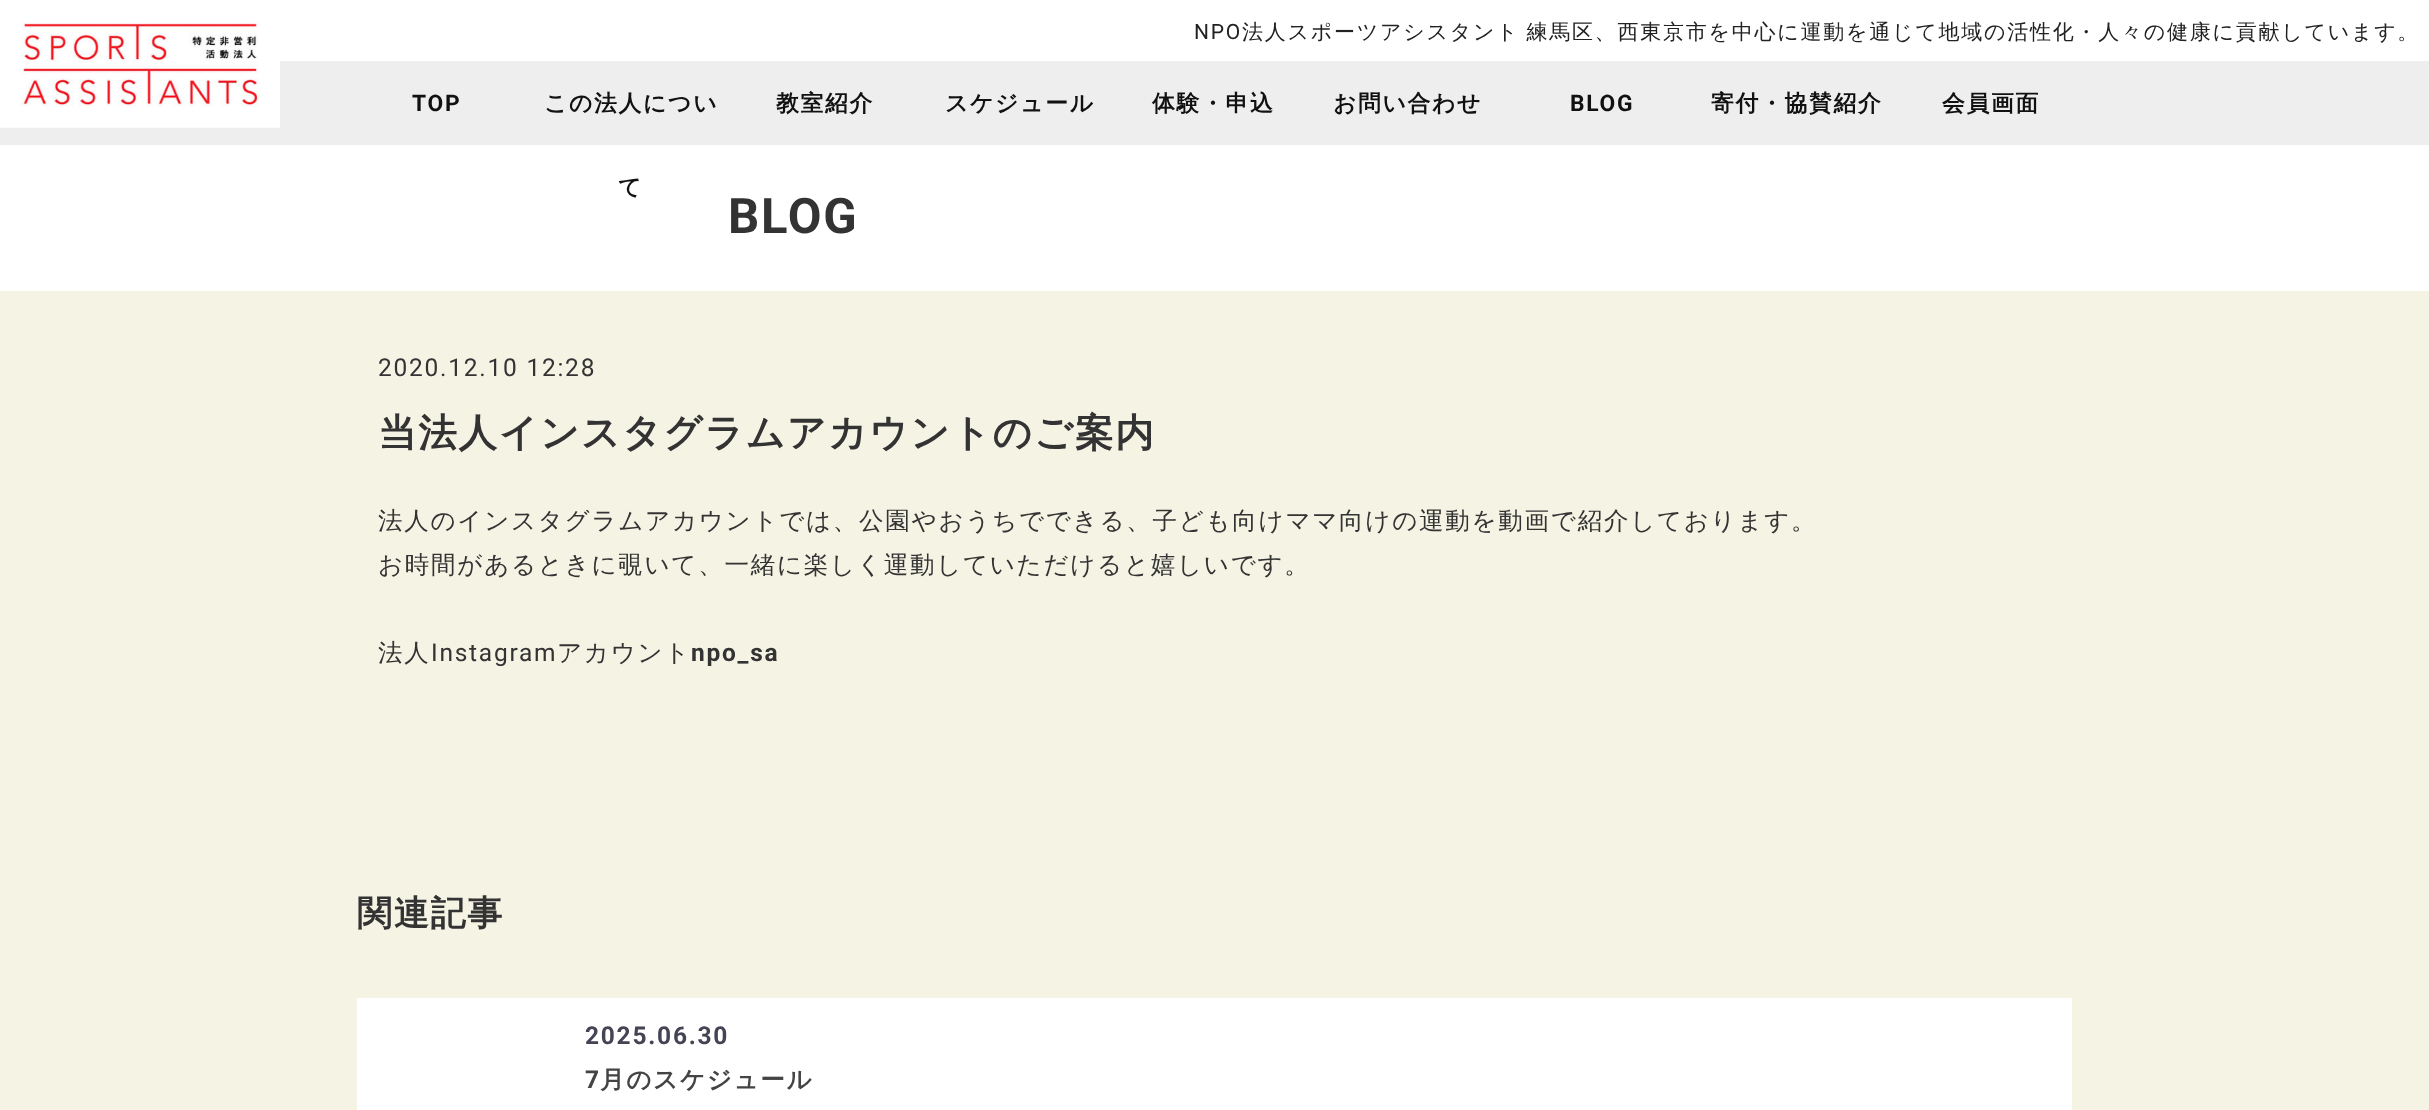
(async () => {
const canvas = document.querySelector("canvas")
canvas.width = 2429
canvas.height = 1110
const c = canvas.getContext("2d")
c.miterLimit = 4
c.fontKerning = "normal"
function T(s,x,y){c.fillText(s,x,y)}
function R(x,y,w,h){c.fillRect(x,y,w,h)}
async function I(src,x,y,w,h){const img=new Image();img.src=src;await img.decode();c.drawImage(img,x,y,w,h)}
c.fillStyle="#f5f3e4"
R(0,0,2429,1110)
c.fillStyle="#fff"
R(0,0,2429,61)
c.fillStyle="#eee"
R(0,61,2429,84)
await I("1.png",0,22,280,106)
c.letterSpacing="1.75px"
c.font="21px Roboto"
c.fillStyle="#222"
T("NPO",1194,39)
c.wordSpacing="-1px"
c.font="500 21px WenQuanYi Zen Hei"
T("法人スポーツアシスタント 練馬区、西東京市を中心に運動を通じて地域の活性化・人々の健康に貢献しています。",1242,39)
c.wordSpacing="0px"
c.font="bold 22.75px Roboto"
c.fillStyle="#111"
T("TOP",412,111)
c.font="bold 22.75px WenQuanYi Zen Hei"
T("この法人につい",544,111)
c.fillStyle="#fff"
R(0,145,2429,146)
c.fillStyle="#111"
T("て",618,195)
T("教室紹介",776,111)
T("スケジュール",945,111)
T("体験・申込",1152,111)
T("お問い合わせ",1333,111)
c.font="bold 22.75px Roboto"
T("BLOG",1570,111)
c.font="bold 22.75px WenQuanYi Zen Hei"
T("寄付・協賛紹介",1711,111)
T("会員画面",1942,111)
c.font="bold 49px Roboto"
c.fillStyle="#333"
T("BLOG",728,233)
c.font="24.5px Roboto"
T("2020.12.10 12:28",378,376)
c.font="bold 38.5px WenQuanYi Zen Hei"
T("当法人インスタグラムアカウントのご案内",378,446)
c.font="500 24.5px WenQuanYi Zen Hei"
T("法人のインスタグラムアカウントでは、公園やおうちでできる、子ども向けママ向けの運動を動画で紹介しております。",378,529)
T("お時間があるときに覗いて、一緒に楽しく運動していただけると嬉しいです。",378,573)
T("法人",378,661)
c.font="24.5px Roboto"
T("Instagram",431,661)
c.font="500 24.5px WenQuanYi Zen Hei"
T("アカウント",557,661)
c.font="bold 24.5px Roboto"
T("npo_sa",691,661)
c.font="bold 35px WenQuanYi Zen Hei"
T("関連記事",357,925)
c.fillStyle="#fff"
R(357,998,1715,112)
c.font="bold 24.5px Roboto"
c.fillStyle="#445"
T("2025.06.30",585,1044)
c.fillStyle="#444"
T("7",585,1088)
c.font="bold 24.5px WenQuanYi Zen Hei"
T("月のスケジュール",600,1088)
})()
